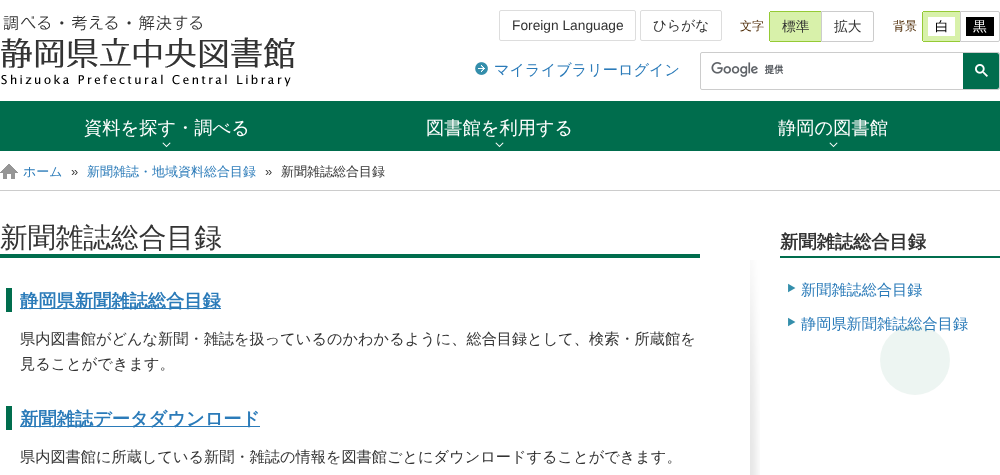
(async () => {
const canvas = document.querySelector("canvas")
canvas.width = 1000
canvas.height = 475
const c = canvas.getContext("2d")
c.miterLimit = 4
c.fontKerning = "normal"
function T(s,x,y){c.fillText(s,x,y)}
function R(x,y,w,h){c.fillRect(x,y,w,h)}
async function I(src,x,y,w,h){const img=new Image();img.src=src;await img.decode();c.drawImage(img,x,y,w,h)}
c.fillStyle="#fff"
R(0,0,1000,475)
await I("1.png",1,15,294,72)
c.beginPath()
c.roundRect(499.5,10.5,136,30,1.5)
c.strokeStyle="#ddd"
c.stroke()
c.font="13.75px Liberation Sans"
c.fillStyle="#333"
T("Foreign Language",512,30)
c.beginPath()
c.roundRect(640.5,10.5,81,30,1.5)
c.stroke()
c.font="500 13.75px WenQuanYi Zen Hei"
T("ひらがな",653,30)
c.font="500 12px WenQuanYi Zen Hei"
c.fillStyle="#4d2a05"
T("文字",740,30)
c.fillStyle="#d8f1aa"
c.beginPath()
c.roundRect(770,12,51,29,[1,0,0,1])
c.fill()
c.fillStyle="#95ca35"
R(770,11,51,1)
R(770,41,51,1)
R(769,12,1,29)
c.font="500 13.75px WenQuanYi Zen Hei"
c.fillStyle="#333"
T("標準",782,31)
c.beginPath()
c.roundRect(821.5,11.5,52,30,[0,1.5,1.5,0])
c.strokeStyle="#ccc"
c.stroke()
T("拡大",834,31)
c.font="500 12px WenQuanYi Zen Hei"
c.fillStyle="#4d2a05"
T("背景",893,30)
c.fillStyle="#d8f1aa"
c.beginPath()
c.roundRect(923,12,37,29,[1,0,0,1])
c.fill()
c.fillStyle="#95ca35"
R(923,11,37,1)
R(923,41,37,1)
R(922,12,1,29)
c.fillStyle="#fff"
R(928,17,27,19)
c.font="500 13.75px WenQuanYi Zen Hei"
c.fillStyle="#000"
T("白",935,31)
c.beginPath()
c.roundRect(960.5,11.5,39,30,[0,1.5,1.5,0])
c.stroke()
R(966,17,28,19)
c.fillStyle="#fff"
T("黒",973,31)
await I("2.png",475,62,13,13)
c.font="500 15.2px WenQuanYi Zen Hei"
c.fillStyle="#2b7bb9"
T("マイライブラリーログイン",494,75)
c.beginPath()
c.roundRect(700.5,52.5,299,37,1.5)
c.stroke()
await I("3.png",711,62,73,15)
c.fillStyle="#006d4d"
c.beginPath()
c.roundRect(963,53,36,36,[0,2,2,0])
c.fill()
await I("4.png",975,64,13,13)
R(0,101,1000,50)
await I("5.png",162,142,9,6)
c.font="500 18.25px WenQuanYi Zen Hei"
c.fillStyle="#fff"
T("資料を探す・調べる",84,134)
await I("5.png",495,142,9,6)
T("図書館を利用する",426,134)
await I("5.png",829,142,9,6)
T("静岡の図書館",778,134)
c.fillStyle="#ccc"
R(0,190,1000,1)
await I("6.png",0,164,18,15)
c.font="500 13px WenQuanYi Zen Hei"
c.fillStyle="#2b7bb9"
T("ホーム",23,176)
c.font="13px Liberation Sans"
c.fillStyle="#333"
T("»",71,176)
c.font="500 13px WenQuanYi Zen Hei"
c.fillStyle="#2b7bb9"
T("新聞雑誌・地域資料総合目録",87,176)
c.font="13px Liberation Sans"
c.fillStyle="#333"
T("»",265,176)
c.font="500 13px WenQuanYi Zen Hei"
T("新聞雑誌総合目録",281,176)
c.fillStyle="#006d4d"
R(0,254,700,4)
c.font="500 27.75px WenQuanYi Zen Hei"
c.fillStyle="#333"
T("新聞雑誌総合目録",0,247)
c.fillStyle="#006d4d"
R(6,288,6,24)
c.fillStyle="#2b7bb9"
R(20,308,201,1)
c.font="bold 18.25px WenQuanYi Zen Hei"
T("静岡県新聞雑誌総合目録",20,307)
c.font="500 15.2px WenQuanYi Zen Hei"
c.fillStyle="#333"
T("県内図書館がどんな新聞・雑誌を扱っているのかわかるように、総合目録として、検索・所蔵館を",20,344)
T("見ることができます。",20,369)
c.fillStyle="#006d4d"
R(6,406,6,24)
c.fillStyle="#2b7bb9"
R(20,426,240,1)
c.font="bold 18.25px WenQuanYi Zen Hei"
T("新聞雑誌データダウンロード",20,425)
c.font="500 15.2px WenQuanYi Zen Hei"
c.fillStyle="#333"
T("県内図書館に所蔵している新聞・雑誌の情報を図書館ごとにダウンロードすることができます。",20,462)
await I("7.png",750,260,10,215)
c.fillStyle="#006d4d"
R(780,256,220,2)
c.font="bold 18.25px WenQuanYi Zen Hei"
c.fillStyle="#333"
T("新聞雑誌総合目録",780,248)
await I("8.png",788,283,8,10)
c.font="500 15.2px WenQuanYi Zen Hei"
c.fillStyle="#2b7bb9"
T("新聞雑誌総合目録",801,295)
await I("8.png",788,317,8,10)
T("静岡県新聞雑誌総合目録",801,329)
c.fillStyle="#006d4d12"
c.beginPath()
c.arc(915,360,35,0,7)
c.fill()
c.strokeStyle="#ffffff08"
c.strokeRect(880.5,325.5,69,69)
})()
